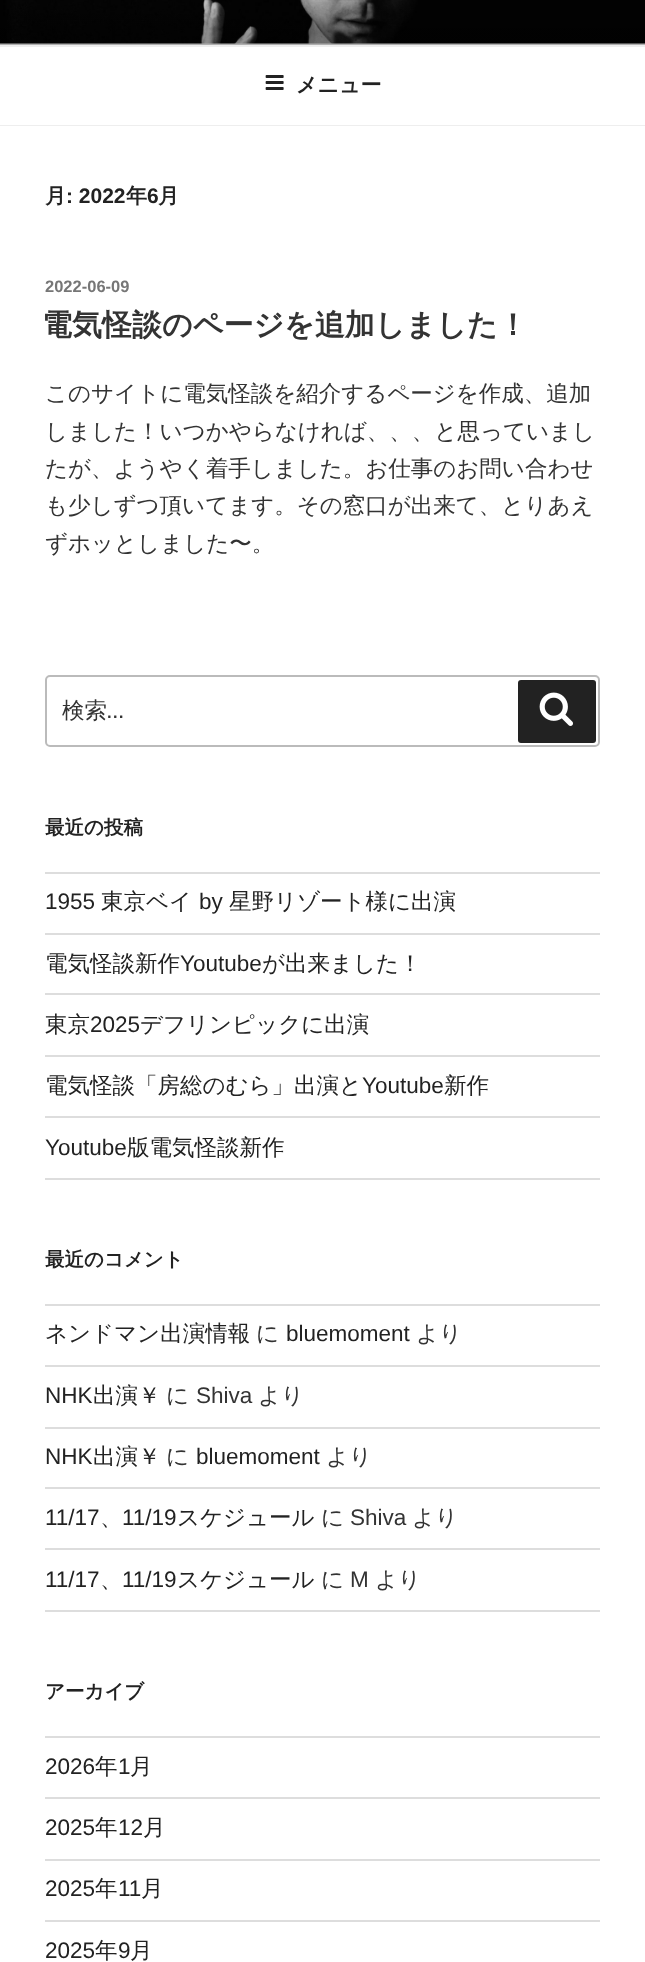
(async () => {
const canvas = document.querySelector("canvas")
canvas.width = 645
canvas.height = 1962
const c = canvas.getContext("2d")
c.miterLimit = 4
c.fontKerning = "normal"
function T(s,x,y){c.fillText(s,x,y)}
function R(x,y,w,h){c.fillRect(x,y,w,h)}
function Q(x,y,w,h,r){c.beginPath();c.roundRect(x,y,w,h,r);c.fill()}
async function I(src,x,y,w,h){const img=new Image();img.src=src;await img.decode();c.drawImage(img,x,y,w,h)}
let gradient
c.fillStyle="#fafafa"
R(0,0,645,1962)
await I("1.png",0,0,645,44)
gradient = c.createLinearGradient(323,0,323,45)
gradient.addColorStop(0,"#00000000")
gradient.addColorStop(.75,"#0000004d")
gradient.addColorStop(1,"#0000004d")
c.fillStyle = gradient
R(0,2,645,43)
c.fillStyle="#fff"
R(0,47,645,78)
c.fillStyle="#eee"
R(0,45,645,2)
R(0,125,645,1)
await I("2.png",265,75,19,15)
c.font="bold 21px WenQuanYi Zen Hei"
c.fillStyle="#222"
T("メニュー",296,92)
c.fillStyle="#fff"
R(0,126,645,1836)
c.fillStyle="#222"
T("月",45,203)
c.font="bold 21px Liberation Sans"
T(": 2022",66,203)
c.font="bold 21px WenQuanYi Zen Hei"
T("年",126,203)
c.font="bold 21px Liberation Sans"
T("6",147,203)
c.font="bold 21px WenQuanYi Zen Hei"
T("月",158,203)
c.font="bold 16.5px Liberation Sans"
c.fillStyle="#767676"
T("2022-06-09",45,292)
c.font="bold 30px WenQuanYi Zen Hei"
c.fillStyle="#333"
T("電気怪談のページを追加しました！",42,335)
c.font="500 22.5px WenQuanYi Zen Hei"
T("このサイトに電気怪談を紹介するページを作成、追加",45,401)
T("しました！いつかやらなければ、、、と思っていまし",45,439)
T("たが、ようやく着手しました。お仕事のお問い合わせ",45,476)
T("も少しずつ頂いてます。その窓口が出来て、とりあえ",45,513)
T("ずホッとしました〜。",45,551)
c.beginPath()
c.roundRect(46,676,553,70,4)
c.strokeStyle="#bbb"
c.lineWidth=2
c.stroke()
T("検索",62,718)
c.font="22.5px Libre Franklin"
T("…",107,718)
c.fillStyle="#222"
Q(518,680,78,63,3)
await I("3.png",539,692,34,34)
c.font="bold 19.5px WenQuanYi Zen Hei"
T("最近の投稿",45,834)
c.fillStyle="#ddd"
R(45,872,555,2)
R(45,933,555,2)
c.font="22.5px Liberation Sans"
c.fillStyle="#222"
T("1955",45,909)
c.font="500 22.5px WenQuanYi Zen Hei"
T("東京ベイ",101,909)
c.font="22.5px Liberation Sans"
T("by",199,909)
c.font="500 22.5px WenQuanYi Zen Hei"
T("星野リゾート様に出演",229,909)
c.fillStyle="#ddd"
R(45,993,555,2)
c.fillStyle="#222"
T("電気怪談新作",45,971)
c.font="22.5px Liberation Sans"
T("Youtube",180,971)
c.font="500 22.5px WenQuanYi Zen Hei"
T("が出来ました！",262,971)
c.fillStyle="#ddd"
R(45,1055,555,2)
c.fillStyle="#222"
T("東京",45,1032)
c.font="22.5px Liberation Sans"
T("2025",90,1032)
c.font="500 22.5px WenQuanYi Zen Hei"
T("デフリンピックに出演",140,1032)
c.fillStyle="#ddd"
R(45,1116,555,2)
c.fillStyle="#222"
T("電気怪談「房総のむら」出演と",45,1093)
c.font="22.5px Liberation Sans"
T("Youtube",362,1093)
c.font="500 22.5px WenQuanYi Zen Hei"
T("新作",444,1093)
c.fillStyle="#ddd"
R(45,1178,555,2)
c.font="22.5px Liberation Sans"
c.fillStyle="#222"
T("Youtube",45,1155)
c.font="500 22.5px WenQuanYi Zen Hei"
T("版電気怪談新作",127,1155)
c.font="bold 19.5px WenQuanYi Zen Hei"
T("最近のコメント",45,1266)
c.fillStyle="#ddd"
R(45,1304,555,2)
R(45,1365,555,2)
c.font="500 22.5px WenQuanYi Zen Hei"
c.fillStyle="#222"
T("ネンドマン出演情報",45,1341)
c.fillStyle="#333"
T("に",256,1341)
c.font="22.5px Liberation Sans"
c.fillStyle="#222"
T("bluemoment",286,1341)
c.font="500 22.5px WenQuanYi Zen Hei"
c.fillStyle="#333"
T("より",416,1341)
c.fillStyle="#ddd"
R(45,1427,555,2)
c.font="22.5px Liberation Sans"
c.fillStyle="#222"
T("NHK",45,1403)
c.font="500 22.5px WenQuanYi Zen Hei"
T("出演￥",93,1403)
c.fillStyle="#333"
T("に",166,1403)
c.font="22.5px Liberation Sans"
T("Shiva",196,1403)
c.font="500 22.5px WenQuanYi Zen Hei"
T("より",258,1403)
c.fillStyle="#ddd"
R(45,1487,555,2)
c.font="22.5px Liberation Sans"
c.fillStyle="#222"
T("NHK",45,1464)
c.font="500 22.5px WenQuanYi Zen Hei"
T("出演￥",93,1464)
c.fillStyle="#333"
T("に",166,1464)
c.font="22.5px Liberation Sans"
c.fillStyle="#222"
T("bluemoment",196,1464)
c.font="500 22.5px WenQuanYi Zen Hei"
c.fillStyle="#333"
T("より",326,1464)
c.fillStyle="#ddd"
R(45,1548,555,2)
c.font="22.5px Liberation Sans"
c.fillStyle="#222"
T("11/17",45,1525)
c.font="500 22.5px WenQuanYi Zen Hei"
T("、",100,1525)
c.font="22.5px Liberation Sans"
T("11/19",122,1525)
c.font="500 22.5px WenQuanYi Zen Hei"
T("スケジュール",177,1525)
c.fillStyle="#333"
T("に",321,1525)
c.font="22.5px Liberation Sans"
T("Shiva",350,1525)
c.font="500 22.5px WenQuanYi Zen Hei"
T("より",412,1525)
c.fillStyle="#ddd"
R(45,1610,555,2)
c.font="22.5px Liberation Sans"
c.fillStyle="#222"
T("11/17",45,1587)
T("11/19",122,1587)
c.font="500 22.5px WenQuanYi Zen Hei"
T("スケジュール",177,1587)
c.fillStyle="#333"
T("に",321,1587)
c.font="22.5px Liberation Sans"
T("M",350,1587)
c.font="500 22.5px WenQuanYi Zen Hei"
T("より",375,1587)
c.fillStyle="#222"
T("、",100,1587)
c.font="bold 19.5px WenQuanYi Zen Hei"
T("アーカイブ",45,1698)
c.fillStyle="#ddd"
R(45,1736,555,2)
R(45,1797,555,2)
c.font="22.5px Liberation Sans"
c.fillStyle="#222"
T("2026",45,1774)
c.font="500 22.5px WenQuanYi Zen Hei"
T("年",95,1774)
c.font="22.5px Liberation Sans"
T("1",118,1774)
c.font="500 22.5px WenQuanYi Zen Hei"
T("月",130,1774)
c.fillStyle="#ddd"
R(45,1859,555,2)
c.font="22.5px Liberation Sans"
c.fillStyle="#222"
T("2025",45,1835)
c.font="500 22.5px WenQuanYi Zen Hei"
T("年",95,1835)
c.font="22.5px Liberation Sans"
T("12",118,1835)
c.font="500 22.5px WenQuanYi Zen Hei"
T("月",143,1835)
c.fillStyle="#ddd"
R(45,1920,555,2)
c.font="22.5px Liberation Sans"
c.fillStyle="#222"
T("2025",45,1896)
c.font="500 22.5px WenQuanYi Zen Hei"
T("年",95,1896)
c.font="22.5px Liberation Sans"
T("11",118,1896)
c.font="500 22.5px WenQuanYi Zen Hei"
T("月",141,1896)
c.font="22.5px Liberation Sans"
T("2025",45,1958)
c.font="500 22.5px WenQuanYi Zen Hei"
T("年",95,1958)
c.font="22.5px Liberation Sans"
T("9",118,1958)
c.font="500 22.5px WenQuanYi Zen Hei"
T("月",130,1958)
})()
